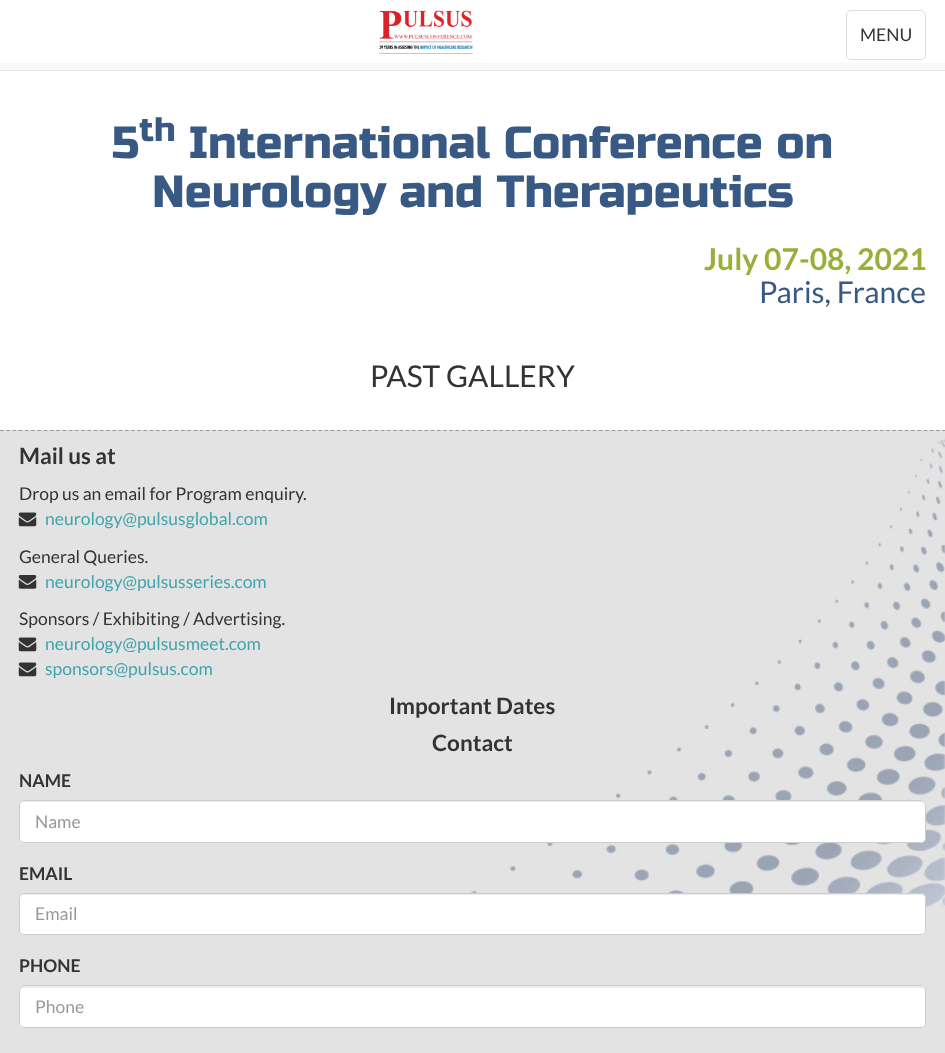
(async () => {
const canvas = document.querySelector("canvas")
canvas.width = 945
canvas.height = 1053
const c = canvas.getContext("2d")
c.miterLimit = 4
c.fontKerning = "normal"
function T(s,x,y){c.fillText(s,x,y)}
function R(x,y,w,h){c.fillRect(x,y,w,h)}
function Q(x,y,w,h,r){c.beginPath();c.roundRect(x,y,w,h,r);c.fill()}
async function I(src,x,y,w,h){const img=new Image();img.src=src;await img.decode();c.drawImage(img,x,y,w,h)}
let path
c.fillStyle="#fff"
R(0,0,945,1053)
c.fillStyle="#f8f8f8"
R(0,63,945,7)
c.fillStyle="#e7e7e7"
R(0,70,945,1)
await I("1.png",379,10,94,44)
c.beginPath()
c.roundRect(846.5,10.5,79,49,4.5)
c.strokeStyle="#ddd"
c.stroke()
c.font="17.5px Lato"
c.fillStyle="#333"
T("MENU",860,41)
c.font="45px Russo One"
c.fillStyle="#395985"
T("5",112,158)
c.font="34px Russo One"
T("th",139,141)
c.font="45px Russo One"
T("International Conference on",189,158)
T("Neurology and Therapeutics",152,207)
c.font="bold 30px Lato"
c.fillStyle="#98b037"
T("July 07-08, 2021",704,270)
c.font="30px Lato"
c.fillStyle="#395985"
T("Paris, France",759,303)
c.fillStyle="#333"
T("PAST GALLERY",370,387)
c.fillStyle="#e3e3e3"
R(0,430,945,623)
await I("2.png",470,438,475,470)
path = new Path2D("M0 430.5h945")
c.strokeStyle="#999"
c.lineWidth=1.2
c.setLineDash([3.75,2.49])
c.stroke(path)
c.font="bold 22.5px Lato"
c.fillStyle="#333"
T("Mail us at",19,464)
c.font="17.5px Lato"
T("Drop us an email for Program enquiry.",19,500)
await I("3.png",18,512,19,15)
c.fillStyle="#3fa5ac"
T("neurology@pulsusglobal.com",45,525)
c.fillStyle="#333"
T("General Queries.",19,563)
await I("4.png",18,575,19,14)
c.fillStyle="#3fa5ac"
T("neurology@pulsusseries.com",45,588)
c.fillStyle="#333"
T("Sponsors / Exhibiting / Advertising.",19,625)
await I("3.png",18,637,19,15)
c.fillStyle="#3fa5ac"
T("neurology@pulsusmeet.com",45,650)
await I("3.png",18,662,19,15)
T("sponsors@pulsus.com",45,675)
c.font="bold 22.5px Lato"
c.fillStyle="#333"
T("Important Dates",389,714)
T("Contact",432,751)
c.font="bold 17.5px Lato"
T("NAME",19,787)
c.fillStyle="#fff"
Q(19,800,907,43,5)
c.fillStyle="#ececec"
path = new Path2D("M24 802h897c2 0 4 2 4 4c0-3-1-5-4-5h-897c-3 0-4 2-4 5c0-2 2-4 4-4z")
c.fill(path)
c.beginPath()
c.roundRect(19.5,800.5,906,42,4.5)
c.strokeStyle="#ccc"
c.lineWidth=1
c.setLineDash([])
c.stroke()
c.font="17.5px Lato"
c.fillStyle="#999"
T("Name",35,828)
c.font="bold 17.5px Lato"
c.fillStyle="#333"
T("EMAIL",19,880)
c.fillStyle="#fff"
Q(19,893,907,42,5)
c.fillStyle="#ececec"
path = new Path2D("M24 895h897c2 0 4 2 4 4c0-3-1-5-4-5h-897c-3 0-4 2-4 5c0-2 2-4 4-4z")
c.fill(path)
c.beginPath()
c.roundRect(19.5,893.5,906,41,4.5)
c.stroke()
c.font="17.5px Lato"
c.fillStyle="#999"
T("Email",35,920)
c.font="bold 17.5px Lato"
c.fillStyle="#333"
T("PHONE",19,972)
c.fillStyle="#fff"
Q(19,985,907,43,5)
c.fillStyle="#ececec"
path = new Path2D("M24 988h897c2 0 4 1 4 3c0-3-1-5-4-5h-897c-3 0-4 2-4 5c0-2 2-3 4-3z")
c.fill(path)
c.beginPath()
c.roundRect(19.5,985.5,906,42,4.5)
c.stroke()
c.font="17.5px Lato"
c.fillStyle="#999"
T("Phone",35,1013)
})()
